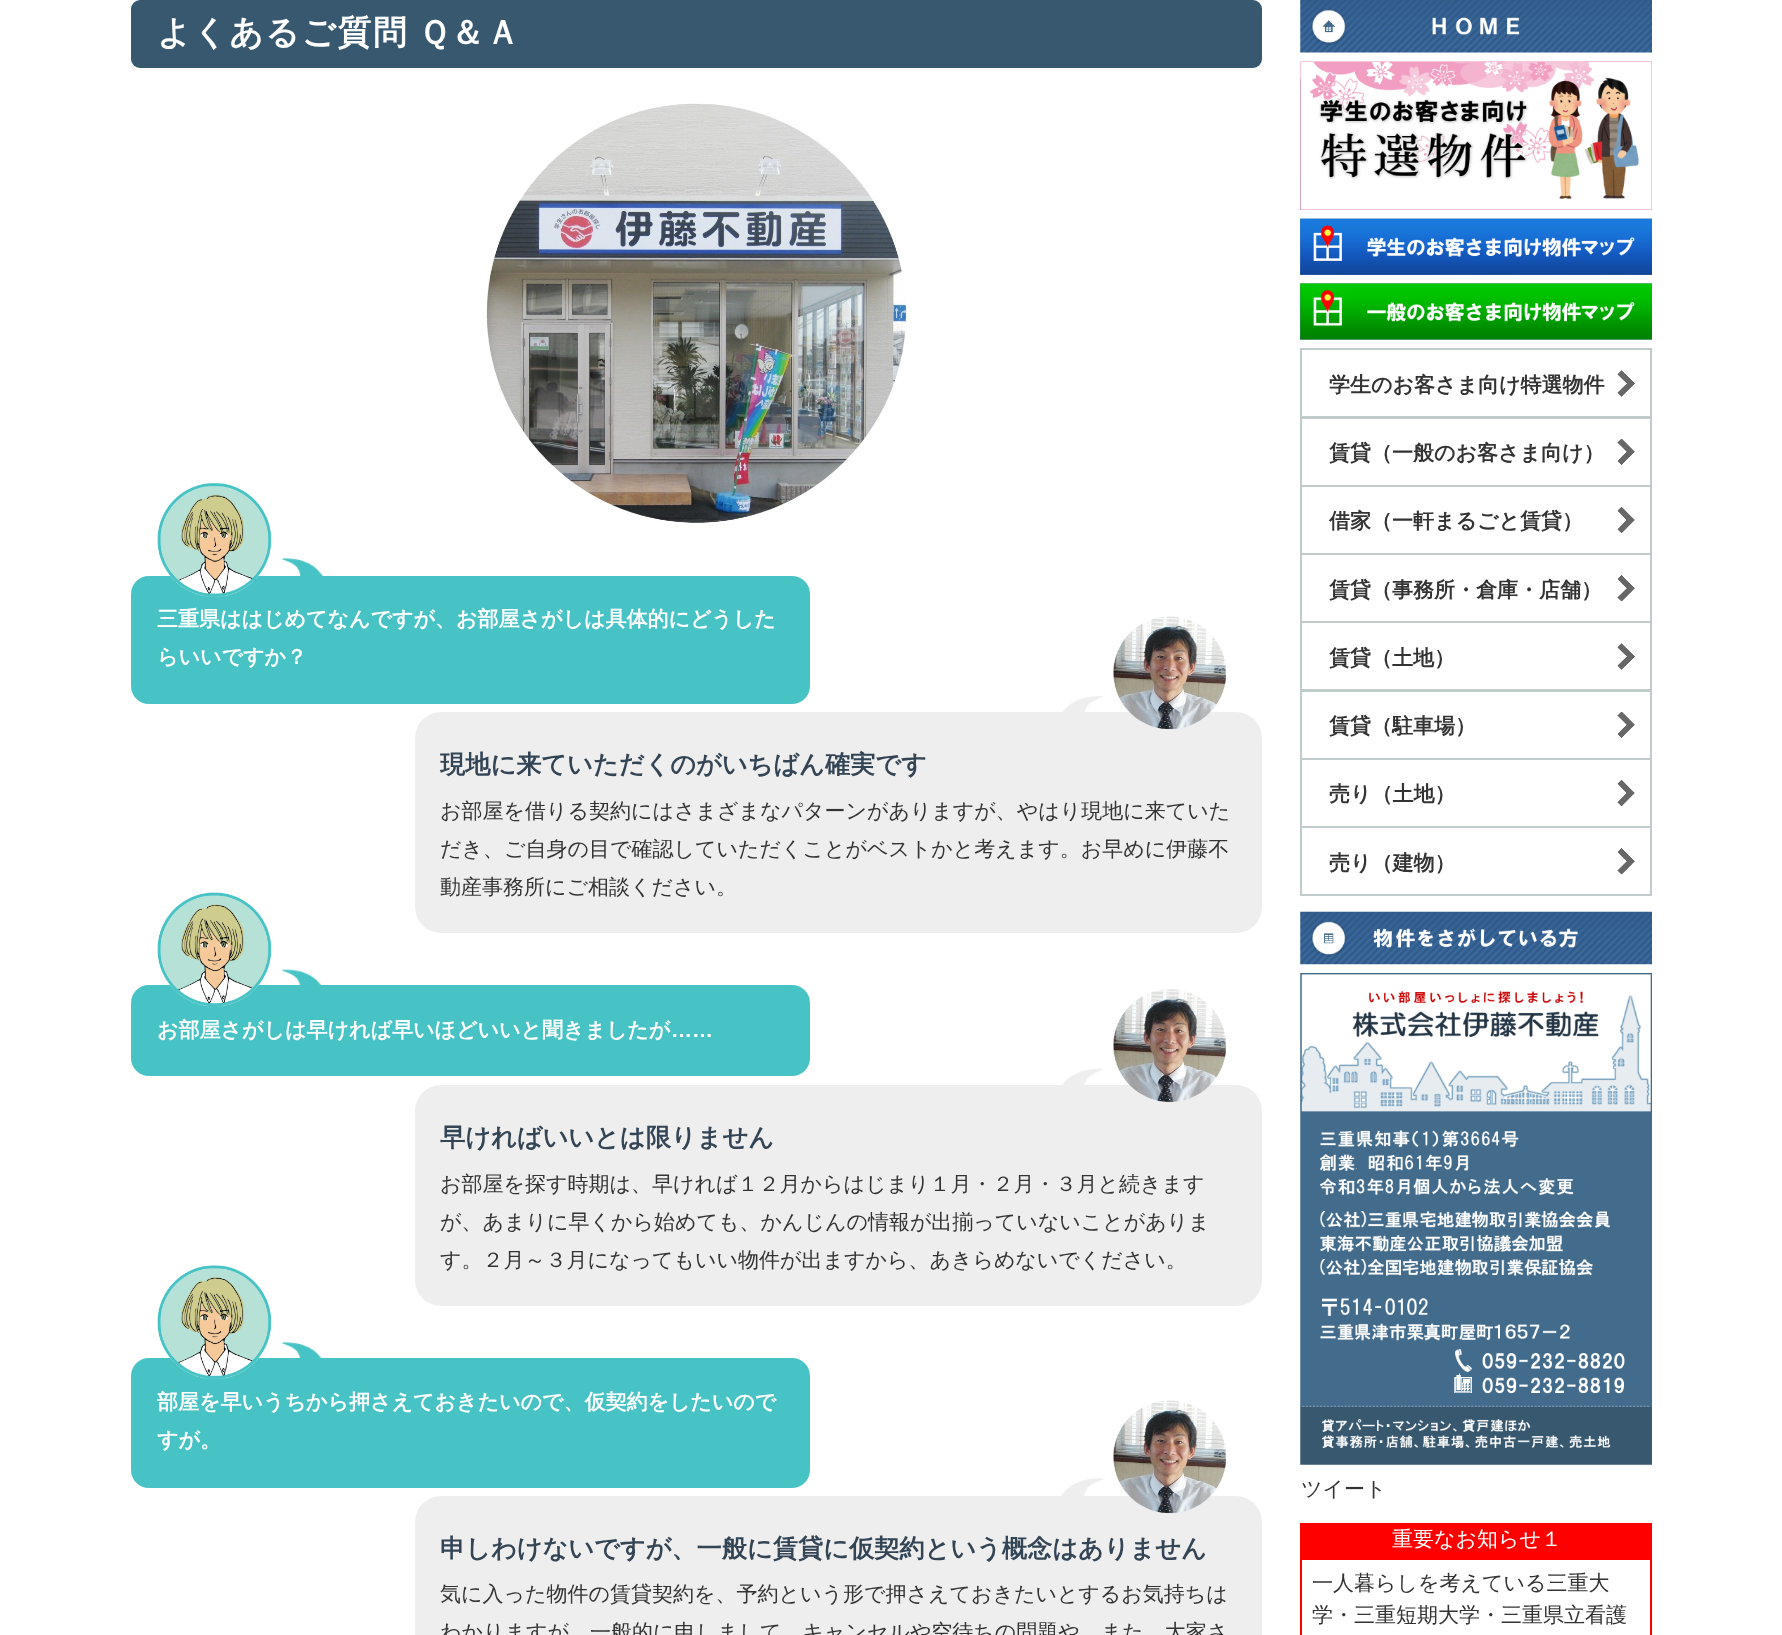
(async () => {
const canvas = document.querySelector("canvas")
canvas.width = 1782
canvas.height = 1635
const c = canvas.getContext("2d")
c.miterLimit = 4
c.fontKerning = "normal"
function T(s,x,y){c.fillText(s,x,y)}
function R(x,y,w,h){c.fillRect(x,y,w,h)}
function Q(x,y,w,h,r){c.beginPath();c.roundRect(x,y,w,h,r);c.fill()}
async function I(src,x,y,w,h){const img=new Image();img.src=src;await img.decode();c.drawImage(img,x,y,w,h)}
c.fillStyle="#fff"
R(0,0,1782,1635)
c.fillStyle="#385870"
Q(131,0,1131,68,9)
c.letterSpacing="1.75px"
c.wordSpacing="-2px"
c.font="bold 33.6px WenQuanYi Zen Hei"
c.fillStyle="#fff"
T("よくあるご質問 Ｑ＆Ａ",157,44)
await I("1.png",486,103,421,420)
c.fillStyle="#48c3c5"
Q(131,576,679,128,18)
await I("2.png",157,483,115,114)
await I("3.png",281,558,43,18)
c.letterSpacing="0px"
c.wordSpacing="0px"
c.font="bold 21px WenQuanYi Zen Hei"
c.fillStyle="#fff"
T("三重県ははじめてなんですが、お部屋さがしは具体的にどうした",157,626)
T("らいいですか？",157,664)
c.fillStyle="#eee"
Q(415,712,847,221,26)
await I("4.png",1062,696,41,16)
await I("5.png",1113,616,114,114)
c.font="bold 25.2px WenQuanYi Zen Hei"
c.fillStyle="#345"
T("現地に来ていただくのがいちばん確実です",440,773)
c.font="500 21px WenQuanYi Zen Hei"
c.fillStyle="#333"
T("お部屋を借りる契約にはさまざまなパターンがありますが、やはり現地に来ていた",440,818)
T("だき、ご自身の目で確認していただくことがベストかと考えます。お早めに伊藤不",440,856)
T("動産事務所にご相談ください。",440,894)
c.fillStyle="#48c3c5"
Q(131,985,679,91,18)
await I("6.png",157,892,115,115)
await I("7.png",281,969,41,16)
c.font="bold 21px WenQuanYi Zen Hei"
c.fillStyle="#fff"
T("お部屋さがしは早ければ早いほどいいと聞きましたが",157,1037)
c.font="bold 21px Liberation Sans"
T("……",671,1037)
c.fillStyle="#eee"
Q(415,1085,847,221,26)
await I("8.png",1062,1068,41,17)
await I("9.png",1113,989,114,114)
c.font="bold 25.2px WenQuanYi Zen Hei"
c.fillStyle="#345"
T("早ければいいとは限りません",440,1146)
c.font="500 21px WenQuanYi Zen Hei"
c.fillStyle="#333"
T("お部屋を探す時期は、早ければ１２月からはじまり１月・２月・３月と続きます",440,1191)
T("が、あまりに早くから始めても、かんじんの情報が出揃っていないことがありま",440,1229)
T("す。２月～３月になってもいい物件が出ますから、あきらめないでください。",440,1267)
c.fillStyle="#48c3c5"
Q(131,1358,679,130,18)
await I("10.png",157,1265,115,114)
await I("11.png",281,1342,41,16)
c.font="bold 21px WenQuanYi Zen Hei"
c.fillStyle="#fff"
T("部屋を早いうちから押さえておきたいので、仮契約をしたいので",157,1409)
T("すが。",157,1447)
c.fillStyle="#eee"
Q(415,1496,847,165,26)
await I("12.png",1061,1478,43,18)
await I("5.png",1113,1400,114,114)
c.font="bold 25.2px WenQuanYi Zen Hei"
c.fillStyle="#345"
T("申しわけないですが、一般に賃貸に仮契約という概念はありません",440,1557)
c.font="500 21px WenQuanYi Zen Hei"
c.fillStyle="#333"
T("気に入った物件の賃貸契約を、予約という形で押さえておきたいとするお気持ちは",440,1601)
T("わかりますが、一般的に申しまして、キャンセルや空待ちの問題や、また、大家さ",440,1639)
await I("13.png",1300,0,352,53)
await I("14.png",1311,9,209,36)
await I("15.png",1300,78,1,132)
await I("16.png",1300,61,352,149)
await I("17.png",1300,218,352,57)
await I("18.png",1300,218,352,57)
await I("19.png",1300,283,352,57)
await I("20.png",1300,283,352,57)
await I("21.png",1617,370,18,27)
c.strokeStyle="#c1cbcb"
c.lineWidth=2
c.strokeRect(1301,349,350,68)
c.font="bold 21px WenQuanYi Zen Hei"
T("学生のお客さま向け特選物件",1329,392)
await I("22.png",1617,438,18,27)
c.strokeRect(1301,418,350,68)
T("賃貸（一般のお客さま向け）",1329,460)
await I("23.png",1617,507,18,26)
c.strokeRect(1301,486,350,68)
T("借家（一軒まるごと賃貸）",1329,528)
await I("24.png",1617,575,18,27)
c.strokeRect(1301,554,350,68)
T("賃貸（事務所・倉庫・店舗）",1329,597)
await I("21.png",1617,643,18,27)
c.strokeRect(1301,622,350,68)
T("賃貸（土地）",1329,665)
await I("22.png",1617,711,18,27)
c.strokeRect(1301,691,350,68)
T("賃貸（駐車場）",1329,733)
await I("23.png",1617,780,18,26)
c.strokeRect(1301,759,350,68)
T("売り（土地）",1329,801)
await I("24.png",1617,848,18,27)
c.strokeRect(1301,827,350,68)
T("売り（建物）",1329,870)
await I("25.png",1300,911,352,54)
await I("26.png",1311,921,267,35)
await I("27.png",1300,973,352,492)
c.font="500 21px WenQuanYi Zen Hei"
T("ツイート",1301,1496)
c.fillStyle="#f00"
R(1300,1523,352,35)
c.fillStyle="#fff"
T("重要なお知らせ１",1392,1546)
c.strokeStyle="#f00"
c.strokeRect(1301,1559,350,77)
c.fillStyle="#333"
T("一人暮らしを考えている三重大",1312,1590)
T("学・三重短期大学・三重県立看護",1312,1622)
})()
